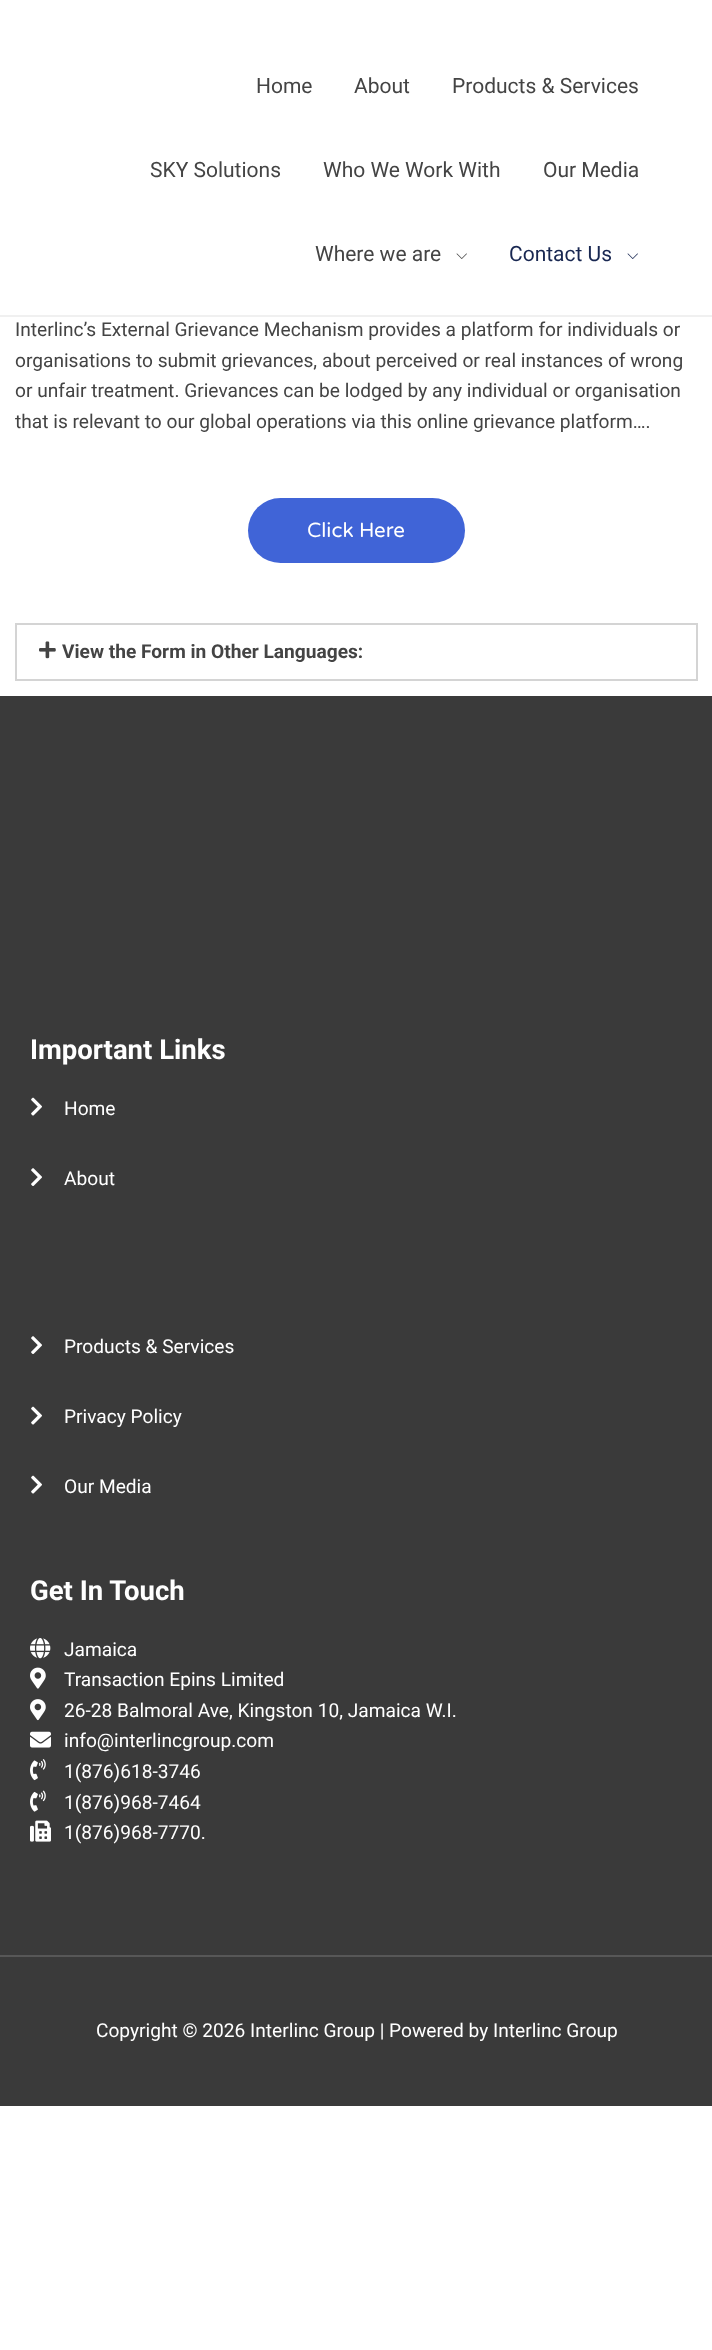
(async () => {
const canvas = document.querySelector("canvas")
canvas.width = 712
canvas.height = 2350
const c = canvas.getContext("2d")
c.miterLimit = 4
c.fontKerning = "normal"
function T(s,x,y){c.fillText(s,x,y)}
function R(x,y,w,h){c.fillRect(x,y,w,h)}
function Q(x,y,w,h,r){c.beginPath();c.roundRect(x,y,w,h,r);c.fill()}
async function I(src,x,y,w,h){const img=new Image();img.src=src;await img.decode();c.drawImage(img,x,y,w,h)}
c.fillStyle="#fff"
R(0,0,712,2350)
c.fillStyle="#f0f0f0"
R(0,315,712,2)
c.font="21px Roboto"
c.fillStyle="#444"
T("Home",256,93)
T("About",354,93)
T("Products & Services",452,93)
T("SKY Solutions",150,177)
T("Who We Work With",323,177)
T("Our Media",543,177)
T("Where we are",315,261)
await I("1.png",456,253,11,6)
c.fillStyle="#182751"
T("Contact Us",509,261)
await I("2.png",627,253,11,6)
c.font="19.15px Roboto"
c.fillStyle="#444"
T("Interlinc’s External Grievance Mechanism provides a platform for individuals or",15,336)
T("organisations to submit grievances, about perceived or real instances of wrong",15,367)
T("or unfair treatment. Grievances can be lodged by any individual or organisation",15,397)
T("that is relevant to our global operations via this online grievance platform….",15,428)
c.fillStyle="#4064d7"
Q(248,498,217,65,32.5)
c.font="20.5px Varela Round"
c.fillStyle="#fff"
T("Click Here",307,537)
c.strokeStyle="#d4d4d4"
c.lineWidth=2
c.strokeRect(16,624,681,56)
await I("3.png",39,641,17,18)
c.font="bold 19.15px Roboto"
c.fillStyle="#444"
T("View the Form in Other Languages:",62,658)
c.fillStyle="#3a3a3a"
R(0,696,712,1259)
c.font="bold 27.5px Roboto"
c.fillStyle="#fff"
T("Important Links",30,1059)
await I("4.png",31,1097,11,19)
c.font="19.15px Roboto"
T("Home",64,1115)
await I("5.png",31,1168,11,18)
T("About",64,1185)
await I("5.png",31,1336,11,18)
T("Products & Services",64,1353)
await I("4.png",31,1406,11,19)
T("Privacy Policy",64,1423)
await I("4.png",31,1475,11,19)
T("Our Media",64,1493)
c.font="bold 27.5px Roboto"
T("Get In Touch",30,1600)
await I("6.png",30,1638,21,21)
c.font="19.15px Roboto"
T("Jamaica",64,1656)
await I("7.png",30,1667,16,22)
T("Transaction Epins Limited",64,1686)
await I("8.png",30,1699,16,22)
T("26-28 Balmoral Ave, Kingston 10, Jamaica W.I.",64,1717)
await I("9.png",30,1731,21,17)
T("info@interlincgroup.com",64,1747)
await I("10.png",30,1759,16,22)
T("1(876)618-3746",64,1778)
await I("11.png",30,1790,16,22)
T("1(876)968-7464",64,1809)
await I("12.png",30,1820,21,22)
T("1(876)968-7770.",64,1839)
c.fillStyle="#3a3a3a"
R(0,1957,712,149)
c.fillStyle="#575757"
R(0,1955,712,2)
c.fillStyle="#fff"
T("Copyright © 2026 Interlinc Group | Powered by Interlinc Group",96,2037)
})()
